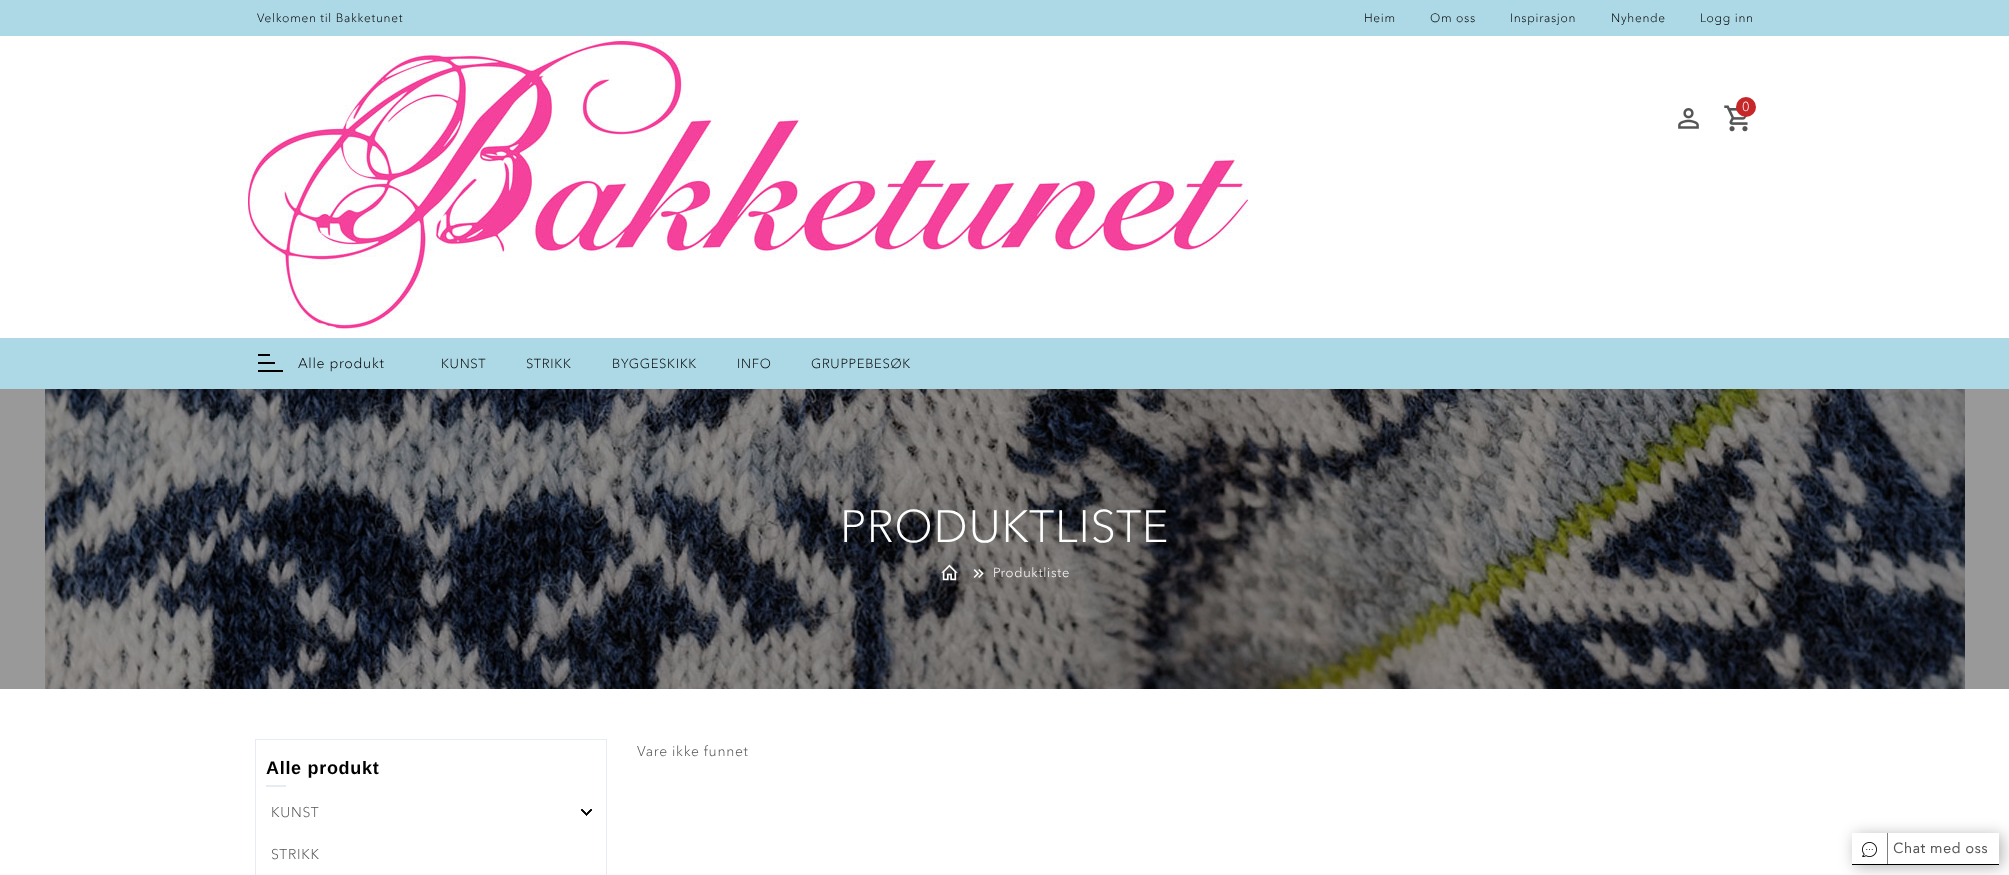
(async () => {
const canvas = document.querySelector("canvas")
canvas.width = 2009
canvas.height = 875
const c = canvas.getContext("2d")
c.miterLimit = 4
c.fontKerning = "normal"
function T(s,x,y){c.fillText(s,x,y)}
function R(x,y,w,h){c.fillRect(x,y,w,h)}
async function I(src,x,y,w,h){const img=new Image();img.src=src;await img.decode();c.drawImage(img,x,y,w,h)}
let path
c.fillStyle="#fff"
R(0,0,2009,875)
c.fillStyle="#999"
R(0,389,2009,300)
c.fillStyle="#add8e6"
R(0,0,2009,389)
c.letterSpacing="0.7px"
c.font="300 12px 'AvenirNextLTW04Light'"
c.fillStyle="#000"
T("Velkomen til Bakketunet",257,22)
T("Heim",1364,22)
T("Om oss",1430,22)
T("Inspirasjon",1510,22)
T("Nyhende",1611,22)
T("Logg inn",1700,22)
c.fillStyle="#fff"
R(0,36,2009,302)
await I("1.png",248,41,1000,288)
await I("2.png",1724,105,24,27)
c.fillStyle="#c62829"
c.beginPath()
c.arc(1746,107,10,0,7)
c.fill()
c.font="300 13px 'AvenirNextLTW04Light'"
c.fillStyle="#fff"
T("0",1742,111)
await I("3.png",1678,108,21,21)
c.fillStyle="#000"
R(258,362,17,2)
R(258,354,12,2)
R(258,370,25,2)
c.font="300 14px 'AvenirNextLTW04Light'"
T("Alle produkt",298,368)
c.font="300 13px 'AvenirNextLTW04Light'"
T("KUNST",441,368)
T("STRIKK",526,368)
T("BYGGESKIKK",612,368)
T("INFO",737,368)
T("GRUPPEBESØK",811,368)
await I("4.png",45,389,1920,300)
c.font="300 45px 'AvenirNextLTW04Light'"
c.fillStyle="#fff"
T("PRODUKTLISTE",840,542)
await I("5.png",941,564,17,17)
await I("6.png",973,569,11,9)
c.font="300 13px 'AvenirNextLTW04Light'"
T("Produktliste",993,577)
c.font="300 14px 'AvenirNextLTW04Light'"
c.fillStyle="#555"
T("Vare ikke funnet",637,756)
c.strokeStyle="#e7ecf0"
c.strokeRect(255.5,739.5,351,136)
c.font="bold 18px Liberation Sans"
c.fillStyle="#000"
T("Alle produkt",266,774)
c.fillStyle="#e7ecf0"
R(266,785,20,2)
c.font="300 14px 'AvenirNextLTW04Light'"
c.fillStyle="#555"
T("KUNST",271,817)
await I("7.png",581,809,11,7)
T("STRIKK",271,859)
c.save()
path = new Path2D("M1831 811h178v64h-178zm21 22h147v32h-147z")
c.clip(path,"evenodd")
c.fillStyle="#0000004d"
c.filter="blur(7.5px)"
c.beginPath()
c.rect(1855,835,147,32)
c.fill()
c.filter="none"
c.restore()
c.fillStyle="#000"
R(1852,864,147,1)
c.fillStyle="#808080"
R(1887,833,1,31)
await I("8.png",1862,842,15,15)
c.font="bold 14px 'AvenirNextLTW04Light'"
c.fillStyle="#555"
T("Chat med oss",1893,853)
})()
